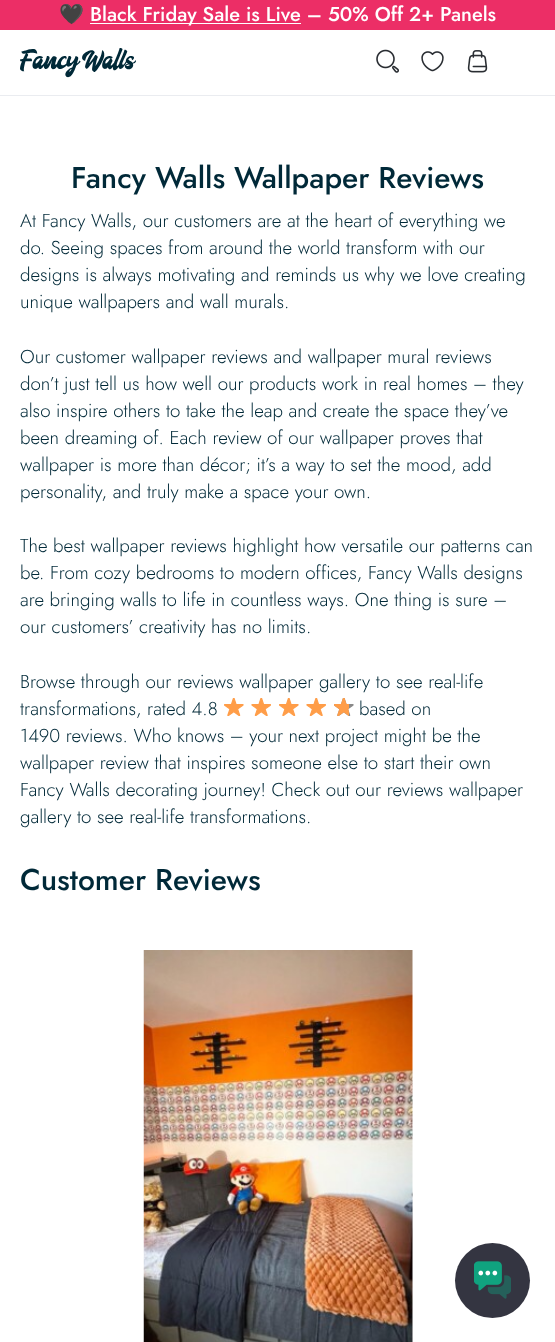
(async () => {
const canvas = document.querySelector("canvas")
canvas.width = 555
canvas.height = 1342
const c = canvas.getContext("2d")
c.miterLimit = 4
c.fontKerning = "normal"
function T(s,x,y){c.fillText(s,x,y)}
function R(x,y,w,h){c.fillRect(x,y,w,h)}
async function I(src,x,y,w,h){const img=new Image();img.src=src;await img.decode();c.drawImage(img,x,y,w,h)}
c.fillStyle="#fff"
R(0,0,555,1342)
c.fillStyle="#ec2e66"
R(0,0,555,30)
c.font="20px Noto Color Emoji"
c.fillStyle="#fff"
T("🖤",59,21)
R(90,23,211,1)
c.font="500 20px Jost"
T("Black Friday Sale is Live – 50% Off 2+ Panels",90,21)
c.fillStyle="#eaecf0"
R(0,95,555,1)
await I("1.png",20,48,116,30)
await I("2.png",376,49,23,24)
await I("3.png",421,51,23,21)
await I("4.png",467,50,21,23)
c.font="500 30px Jost"
c.fillStyle="#002938"
T("Fancy Walls Wallpaper Reviews",71,188)
c.font="300 18.75px Jost"
T("At Fancy Walls, our customers are at the heart of everything we",20,227)
T("do. Seeing spaces from around the world transform with our",20,254)
T("designs is always motivating and reminds us why we love creating",20,281)
T("unique wallpapers and wall murals.",20,308)
T("Our customer wallpaper reviews and wallpaper mural reviews",20,363)
T("don’t just tell us how well our products work in real homes – they",20,390)
T("also inspire others to take the leap and create the space they’ve",20,417)
T("been dreaming of. Each review of our wallpaper proves that",20,444)
T("wallpaper is more than décor; it’s a way to set the mood, add",20,471)
T("personality, and truly make a space your own.",20,498)
T("The best wallpaper reviews highlight how versatile our patterns can",20,552)
T("be. From cozy bedrooms to modern offices, Fancy Walls designs",20,579)
T("are bringing walls to life in countless ways. One thing is sure –",20,606)
T("our customers’ creativity has no limits.",20,633)
T("Browse through our reviews wallpaper gallery to see real-life",20,688)
T("transformations, rated 4.8",20,715)
await I("5.png",224,698,20,18)
await I("6.png",251,698,20,18)
await I("5.png",279,698,20,18)
await I("6.png",306,698,20,18)
await I("7.png",334,698,20,18)
await I("8.png",334,698,15,18)
T("based on",359,715)
T("1490 reviews. Who knows – your next project might be the",20,742)
T("wallpaper review that inspires someone else to start their own",20,769)
T("Fancy Walls decorating journey! Check out our reviews wallpaper",20,796)
T("gallery to see real-life transformations.",20,823)
c.font="500 30px Jost"
T("Customer Reviews",20,890)
await I("9.png",143,950,270,392)
c.fillStyle="#343541"
c.beginPath()
c.arc(492.5,1280.5,37.5,0,7)
c.fill()
await I("10.png",474,1261,37,38)
})()
